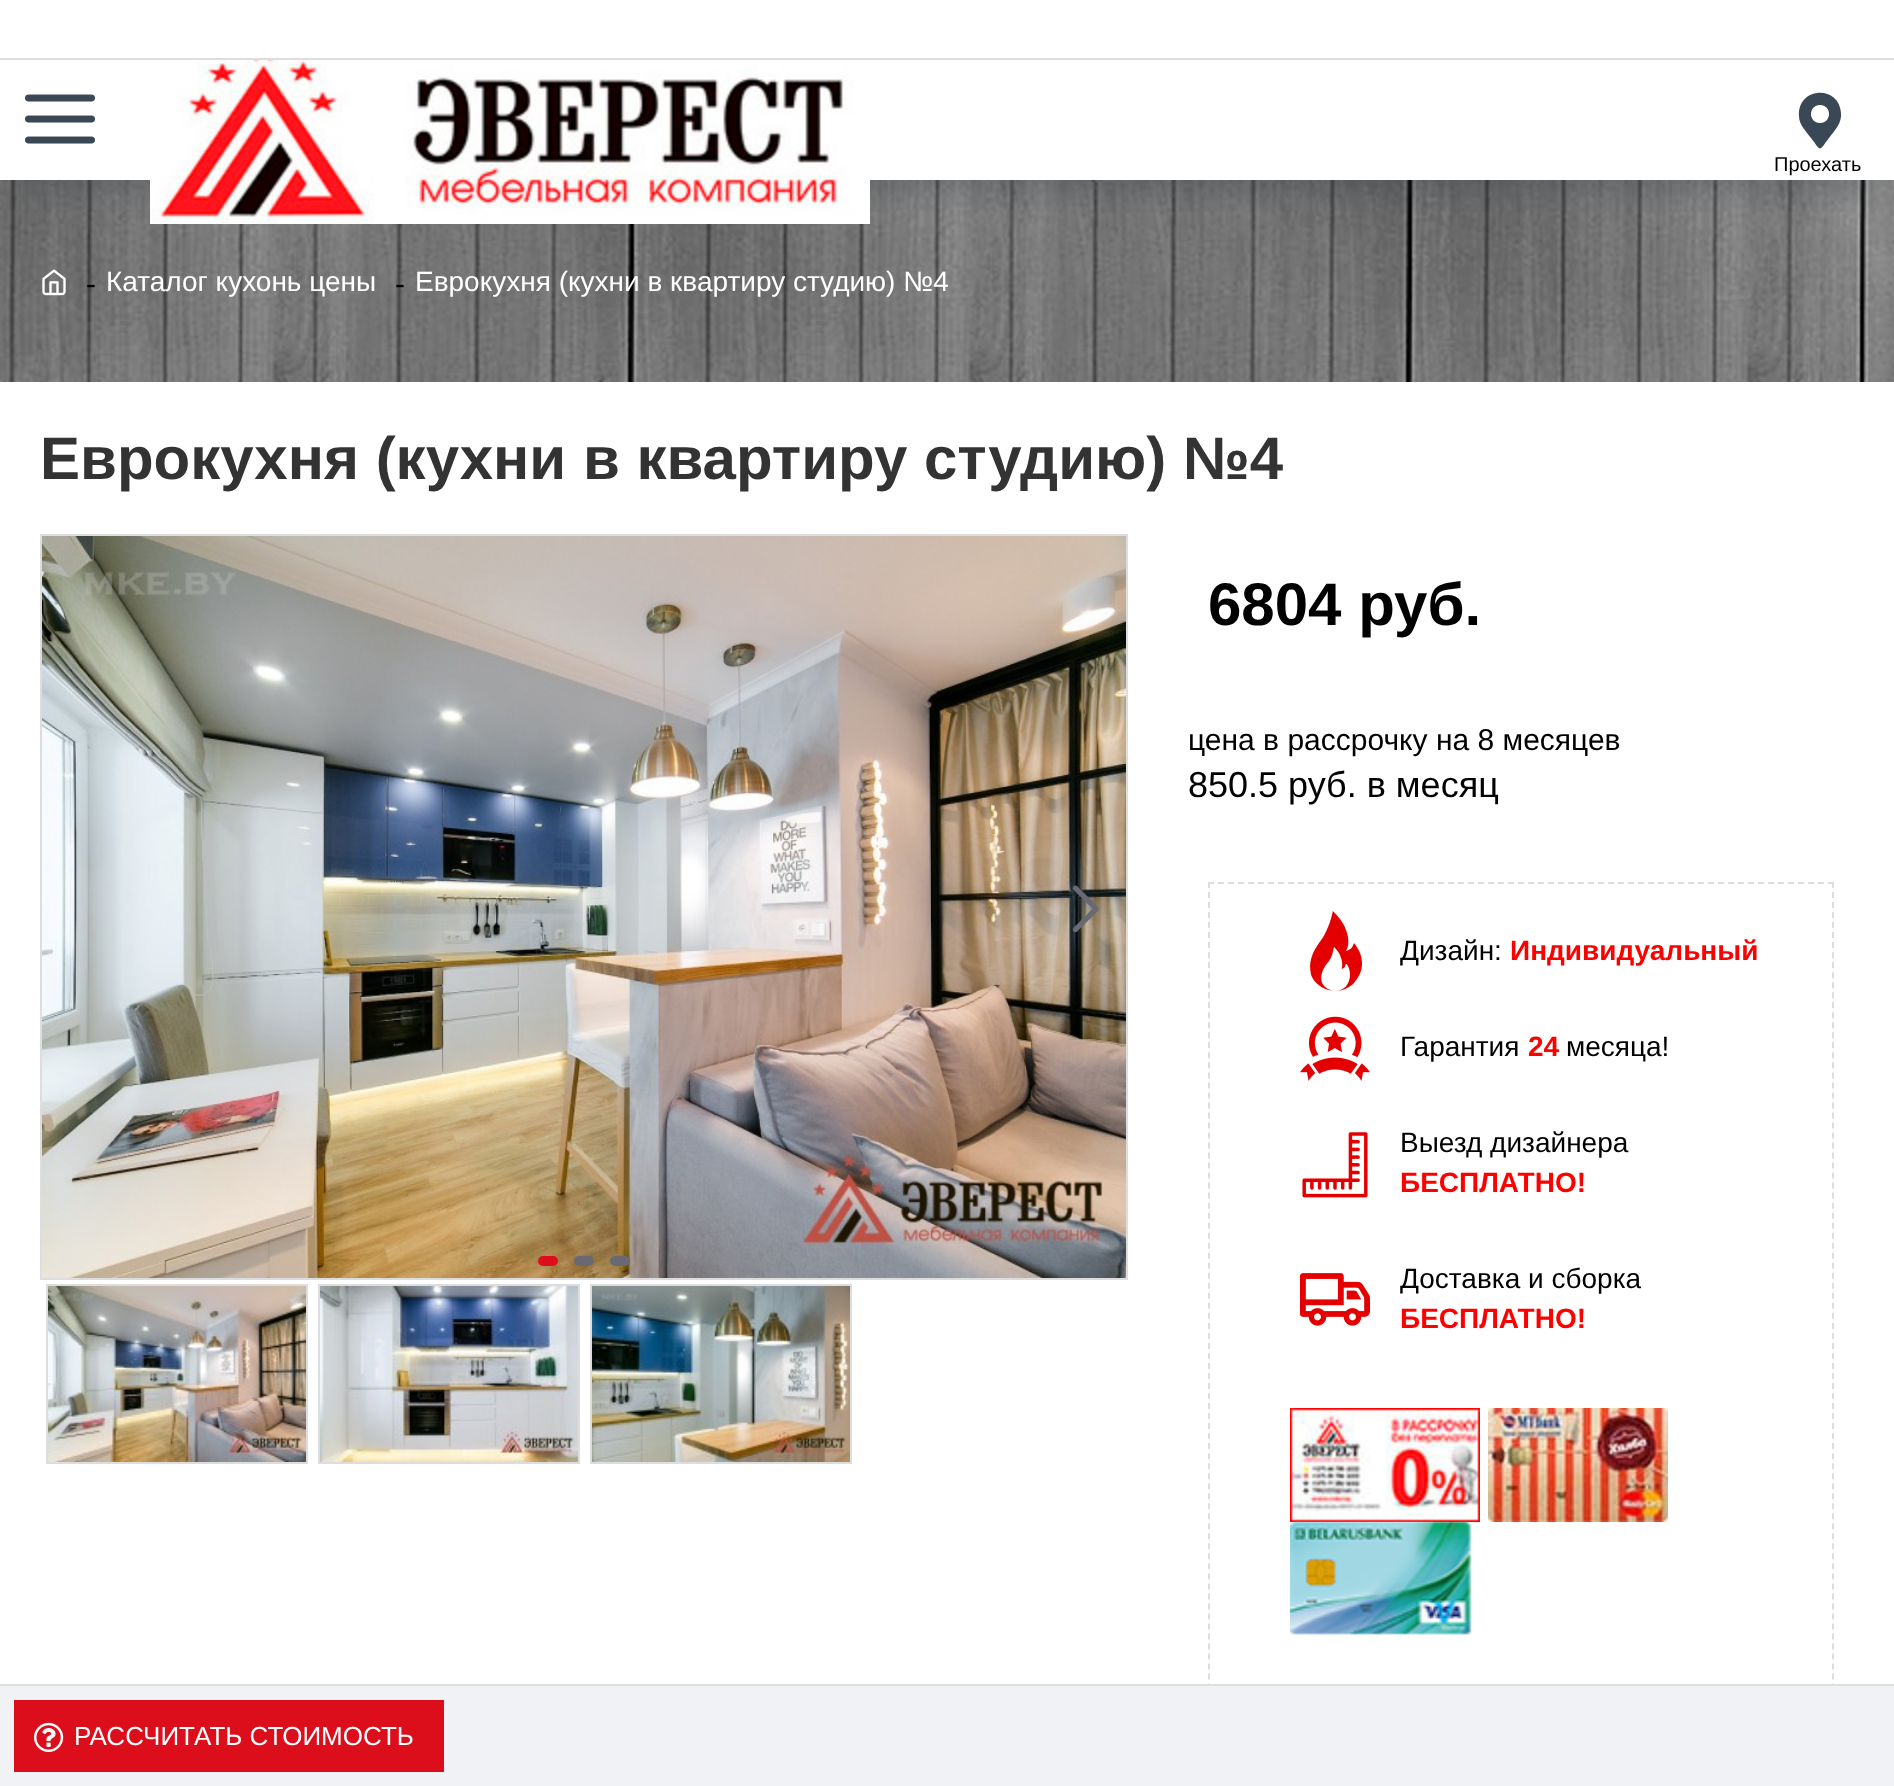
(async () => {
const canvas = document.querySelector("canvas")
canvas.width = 1894
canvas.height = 1786
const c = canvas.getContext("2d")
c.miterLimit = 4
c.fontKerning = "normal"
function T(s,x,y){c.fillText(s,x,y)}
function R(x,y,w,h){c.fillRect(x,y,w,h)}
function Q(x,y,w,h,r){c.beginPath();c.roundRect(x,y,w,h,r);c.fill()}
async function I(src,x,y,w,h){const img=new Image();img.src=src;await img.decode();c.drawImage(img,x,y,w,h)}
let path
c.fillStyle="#fff"
R(0,0,1894,1786)
c.fillStyle="#ddd"
R(0,58,1894,2)
await I("3.png",0,180,1894,202)
c.save()
c.beginPath()
c.rect(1,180,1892,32)
c.clip()
c.fillStyle="#2c364047"
c.filter="blur(15px)"
c.beginPath()
c.rect(20,110,1854,80)
c.fill()
c.filter="none"
c.restore()
await I("1.png",150,60,720,164)
await I("2.png",25,94,70,50)
c.fillStyle="#3a4754"
path = new Path2D("M1841 113c-2-29-44-26-42 3c0 9 7 15 12 22c11 14 7 14 18 0c6-8 13-15 12-25zm-21 10c-12 0-12-18 0-18c12 0 12 18 0 18z")
c.fill(path)
c.font="20px Liberation Sans"
c.fillStyle="#000"
T("Проехать",1774,171)
await I("4.png",42,269,24,27)
c.font="30px Liberation Sans"
T("-",86,294)
c.font="28px Liberation Sans"
c.fillStyle="#fff"
T("Каталог кухонь цены",106,291)
c.font="30px Liberation Sans"
c.fillStyle="#000"
T("-",395,294)
c.font="28px Liberation Sans"
c.fillStyle="#fff"
T("Еврокухня (кухни в квартиру студию) №4",415,291)
c.font="bold 60px Liberation Sans"
c.fillStyle="#333"
T("Еврокухня (кухни в квартиру студию) №4",40,479)
c.strokeStyle="#ddd"
c.lineWidth=2
c.strokeRect(41,535,1086,744)
await I("5.png",42,536,1084,742)
await I("6.png",1072,885,27,48)
c.fillStyle="#dd0e1c"
Q(538,1256,20,10,5)
c.fillStyle="#696973"
Q(574,1256,20,10,5)
Q(610,1256,20,10,5)
c.strokeRect(47,1285,260,178)
await I("7.png",48,1286,258,176)
c.strokeRect(319,1285,260,178)
await I("8.png",320,1286,258,176)
c.strokeRect(591,1285,260,178)
await I("9.png",592,1286,258,176)
c.fillStyle="#000"
T("6804 руб.",1208,625)
c.font="30px Liberation Sans"
T("цена в рассрочку на 8 месяцев",1188,750)
c.font="36px Liberation Sans"
T("850.5 руб. в месяц",1188,797)
path = new Path2D("M1208 883h626")
c.setLineDash([6,4])
c.stroke(path)
path = new Path2D("M1833 882v878")
c.setLineDash([6,4.02])
c.stroke(path)
path = new Path2D("M1209 882v878")
c.stroke(path)
c.fillStyle="#f0f2f5"
R(0,1686,1894,100)
c.fillStyle="#ddd"
R(0,1684,1894,2)
c.fillStyle="#dd0e1c"
R(14,1700,430,72)
await I("10.png",34,1722,30,30)
c.font="26px Liberation Sans"
c.fillStyle="#fff"
T("РАССЧИТАТЬ СТОИМОСТЬ",74,1745)
await I("11.png",1310,911,52,80)
c.font="28px Liberation Sans"
c.fillStyle="#000"
T("Дизайн:",1400,960)
c.font="bold 28px Liberation Sans"
c.fillStyle="#f00"
T("Индивидуальный",1510,960)
await I("12.png",1300,1016,70,65)
c.font="28px Liberation Sans"
c.fillStyle="#000"
T("Гарантия",1400,1056)
c.font="bold 28px Liberation Sans"
c.fillStyle="#f00"
T("24",1528,1056)
c.font="28px Liberation Sans"
c.fillStyle="#000"
T("месяца!",1566,1056)
await I("13.png",1302,1132,66,66)
T("Выезд дизайнера",1400,1152)
c.font="bold 28px Liberation Sans"
c.fillStyle="#f00"
T("БЕСПЛАТНО!",1400,1192)
await I("14.png",1300,1273,70,53)
c.font="28px Liberation Sans"
c.fillStyle="#000"
T("Доставка и сборка",1400,1288)
c.font="bold 28px Liberation Sans"
c.fillStyle="#f00"
T("БЕСПЛАТНО!",1400,1328)
await I("15.png",1290,1408,190,114)
await I("16.png",1488,1408,180,114)
await I("17.png",1290,1521,182,114)
})()
